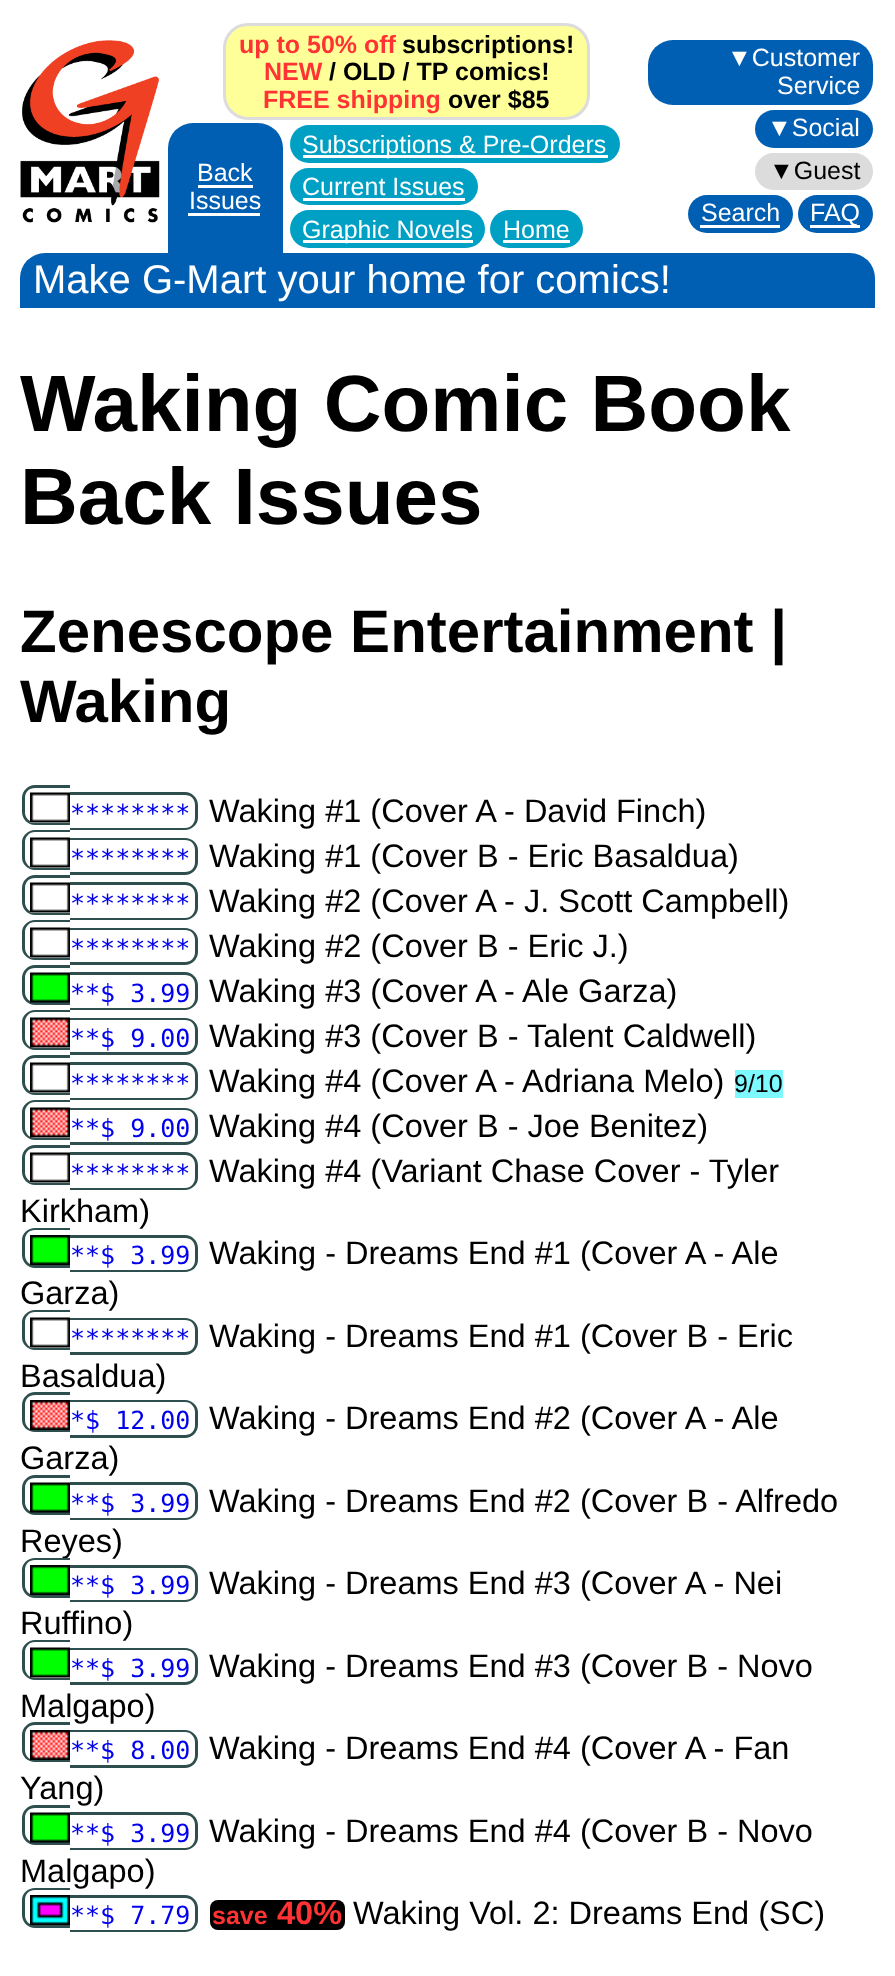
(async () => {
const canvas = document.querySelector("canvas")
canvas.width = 895
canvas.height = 1976
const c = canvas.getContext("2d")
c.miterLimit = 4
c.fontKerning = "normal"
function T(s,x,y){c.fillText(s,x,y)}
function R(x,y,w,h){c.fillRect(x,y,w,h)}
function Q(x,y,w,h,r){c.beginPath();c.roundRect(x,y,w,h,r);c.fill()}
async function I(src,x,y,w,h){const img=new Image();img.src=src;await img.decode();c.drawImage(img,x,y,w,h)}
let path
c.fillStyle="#fff"
R(0,0,895,1976)
await I("1.png",20,40,140,183)
c.fillStyle="#ff9"
c.beginPath()
c.roundRect(224.5,24.5,364,94,23.5)
c.fill()
c.strokeStyle="#dcdcdc"
c.lineWidth=3
c.stroke()
c.font="bold 25px Liberation Sans"
c.fillStyle="#f33"
T("up to 50% off",239,53)
c.fillStyle="#000"
T("subscriptions!",402,53)
c.fillStyle="#f33"
T("NEW",264,80)
c.fillStyle="#000"
T("/ OLD / TP",329,80)
T("comics!",455,80)
c.fillStyle="#f33"
T("FREE shipping",263,108)
c.fillStyle="#000"
T("over $85",448,108)
c.fillStyle="#005fb2"
Q(648,40,225,65,25)
c.font="25px Liberation Sans"
c.fillStyle="#fff"
T("▼Customer",727,66)
T("Service",777,94)
c.fillStyle="#005fb2"
Q(755,110,118,38,19)
c.fillStyle="#fff"
T("▼Social",767,136)
c.fillStyle="#dcdcdc"
Q(755,153,118,37,18.5)
c.fillStyle="#000"
T("▼Guest",769,179)
c.fillStyle="#005fb2"
Q(688,195,105,38,19)
c.fillStyle="#fff"
T("Search",701,221)
R(700,225,80,3)
c.fillStyle="#005fb2"
Q(798,195,75,38,19)
c.fillStyle="#fff"
R(810,225,50,3)
T("FAQ",810,221)
c.fillStyle="#005fb2"
c.beginPath()
c.roundRect(168,123,115,132,[25,25,0,0])
c.fill()
c.fillStyle="#fff"
T("Back",197,181)
T("Issues",189,209)
R(198,185,55,3)
R(188,213,72,3)
c.fillStyle="#00a0c4"
Q(290,125,330,38,19)
c.fillStyle="#fff"
R(303,155,305,3)
T("Subscriptions & Pre-Orders",302,153)
c.fillStyle="#00a0c4"
Q(290,168,188,37,18.5)
c.fillStyle="#fff"
T("Current Issues",302,195)
R(303,198,162,3)
c.fillStyle="#00a0c4"
Q(290,210,195,38,19)
c.fillStyle="#fff"
R(303,240,170,3)
T("Graphic Novels",302,238)
c.fillStyle="#00a0c4"
Q(490,210,93,38,19)
c.fillStyle="#fff"
T("Home",503,238)
R(503,240,67,3)
c.fillStyle="#005fb2"
c.beginPath()
c.roundRect(20,253,855,55,[25,25,0,0])
c.fill()
c.font="40px Liberation Sans"
c.fillStyle="#fff"
T("Make G-Mart your home for comics!",33,293)
c.font="bold 80px Liberation Sans"
c.fillStyle="#000"
T("Waking Comic Book",20,431)
T("Back Issues",20,524)
c.font="bold 60px Liberation Sans"
T("Zenescope Entertainment |",20,652)
T("Waking",20,722)
c.fillStyle="#2f4f4f"
path = new Path2D("M35 785h35v40h-35c-7 0-13-6-13-13v-14c0-7 6-13 13-13zm0 3h35v34h-35c-6 0-10-4-10-10v-14c0-6 4-10 10-10z")
c.fill(path,"evenodd")
c.fillStyle="#fff"
R(30,820,40,3)
await I("2.png",30,792,40,31)
c.fillStyle="#2f4f4f"
path = new Path2D("M70 792h115c7 0 13 6 13 13v13c0 6-6 12-13 12h-115zm0 3h115c6 0 10 4 10 10v13c0 5-4 10-10 10h-115z")
c.fill(path,"evenodd")
c.font="25px DejaVu Sans Mono"
c.fillStyle="#00e"
T("********",70,822)
c.font="32.5px Liberation Sans"
c.fillStyle="#000"
T("Waking #1 (Cover A - David Finch)",209,822)
c.fillStyle="#2f4f4f"
path = new Path2D("M35 830h35v40h-35c-7 0-13-6-13-12v-16c0-6 6-12 13-12zm0 2h35v36h-35c-6 0-10-5-10-10v-16c0-5 4-10 10-10z")
c.fill(path,"evenodd")
c.fillStyle="#fff"
R(30,866,5,2)
await I("2.png",30,837,40,31)
c.fillStyle="#2f4f4f"
path = new Path2D("M70 838h115c7 0 13 5 13 12v12c0 7-6 13-13 13h-115zm0 2h115c6 0 10 4 10 10v12c0 6-4 10-10 10h-115z")
c.fill(path,"evenodd")
c.font="25px DejaVu Sans Mono"
c.fillStyle="#00e"
T("********",70,867)
c.font="32.5px Liberation Sans"
c.fillStyle="#000"
T("Waking #1 (Cover B - Eric Basaldua)",209,867)
c.fillStyle="#2f4f4f"
path = new Path2D("M35 875h35v40h-35c-7 0-13-6-13-13v-14c0-7 6-13 13-13zm0 3h35v34h-35c-6 0-10-4-10-10v-14c0-6 4-10 10-10z")
c.fill(path,"evenodd")
c.fillStyle="#fff"
R(30,910,40,3)
await I("2.png",30,882,40,31)
c.fillStyle="#2f4f4f"
path = new Path2D("M70 882h115c7 0 13 6 13 13v13c0 6-6 12-13 12h-115zm0 3h115c6 0 10 4 10 10v13c0 5-4 10-10 10h-115z")
c.fill(path,"evenodd")
c.font="25px DejaVu Sans Mono"
c.fillStyle="#00e"
T("********",70,912)
c.font="32.5px Liberation Sans"
c.fillStyle="#000"
T("Waking #2 (Cover A - J. Scott Campbell)",209,912)
c.fillStyle="#2f4f4f"
path = new Path2D("M35 920h35v40h-35c-7 0-13-6-13-12v-16c0-6 6-12 13-12zm0 2h35v36h-35c-6 0-10-5-10-10v-16c0-5 4-10 10-10z")
c.fill(path,"evenodd")
c.fillStyle="#fff"
R(30,956,5,2)
await I("2.png",30,927,40,31)
c.fillStyle="#2f4f4f"
path = new Path2D("M70 928h115c7 0 13 5 13 12v12c0 7-6 13-13 13h-115zm0 2h115c6 0 10 4 10 10v12c0 6-4 10-10 10h-115z")
c.fill(path,"evenodd")
c.font="25px DejaVu Sans Mono"
c.fillStyle="#00e"
T("********",70,957)
c.font="32.5px Liberation Sans"
c.fillStyle="#000"
T("Waking #2 (Cover B - Eric J.)",209,957)
c.fillStyle="#2f4f4f"
path = new Path2D("M35 965h35v40h-35c-7 0-13-6-13-13v-14c0-7 6-13 13-13zm0 3h35v34h-35c-6 0-10-4-10-10v-14c0-6 4-10 10-10z")
c.fill(path,"evenodd")
await I("3.png",30,972,40,31)
path = new Path2D("M70 972h115c7 0 13 6 13 13v13c0 6-6 12-13 12h-115zm0 3h115c6 0 10 4 10 10v13c0 5-4 10-10 10h-115z")
c.fill(path,"evenodd")
c.font="25px DejaVu Sans Mono"
c.fillStyle="#00e"
T("**$ 3.99",70,1002)
c.font="32.5px Liberation Sans"
c.fillStyle="#000"
T("Waking #3 (Cover A - Ale Garza)",209,1002)
c.fillStyle="#2f4f4f"
path = new Path2D("M35 1010h35v40h-35c-7 0-13-6-13-12v-16c0-6 6-12 13-12zm0 2h35v36h-35c-6 0-10-5-10-10v-16c0-5 4-10 10-10z")
c.fill(path,"evenodd")
await I("4.png",30,1017,40,31)
path = new Path2D("M70 1018h115c7 0 13 5 13 12v12c0 7-6 13-13 13h-115zm0 2h115c6 0 10 4 10 10v12c0 6-4 10-10 10h-115z")
c.fill(path,"evenodd")
c.font="25px DejaVu Sans Mono"
c.fillStyle="#00e"
T("**$ 9.00",70,1047)
c.font="32.5px Liberation Sans"
c.fillStyle="#000"
T("Waking #3 (Cover B - Talent Caldwell)",209,1047)
c.fillStyle="#2f4f4f"
path = new Path2D("M35 1055h35v40h-35c-7 0-13-6-13-13v-14c0-7 6-13 13-13zm0 3h35v34h-35c-6 0-10-4-10-10v-14c0-6 4-10 10-10z")
c.fill(path,"evenodd")
c.fillStyle="#fff"
R(30,1090,40,3)
await I("2.png",30,1062,40,31)
c.fillStyle="#2f4f4f"
path = new Path2D("M70 1062h115c7 0 13 6 13 13v13c0 6-6 12-13 12h-115zm0 3h115c6 0 10 4 10 10v13c0 5-4 10-10 10h-115z")
c.fill(path,"evenodd")
c.font="25px DejaVu Sans Mono"
c.fillStyle="#00e"
T("********",70,1092)
c.font="32.5px Liberation Sans"
c.fillStyle="#000"
T("Waking #4 (Cover A - Adriana Melo)",209,1092)
c.fillStyle="#7df9ff"
R(735,1070,48,28)
c.font="25px Liberation Sans"
c.fillStyle="#000"
T("9/10",734,1092)
c.fillStyle="#2f4f4f"
path = new Path2D("M35 1100h35v40h-35c-7 0-13-6-13-12v-16c0-6 6-12 13-12zm0 2h35v36h-35c-6 0-10-5-10-10v-16c0-5 4-10 10-10z")
c.fill(path,"evenodd")
await I("4.png",30,1107,40,31)
path = new Path2D("M70 1108h115c7 0 13 5 13 12v12c0 7-6 13-13 13h-115zm0 2h115c6 0 10 4 10 10v12c0 6-4 10-10 10h-115z")
c.fill(path,"evenodd")
c.font="25px DejaVu Sans Mono"
c.fillStyle="#00e"
T("**$ 9.00",70,1137)
c.font="32.5px Liberation Sans"
c.fillStyle="#000"
T("Waking #4 (Cover B - Joe Benitez)",209,1137)
c.fillStyle="#2f4f4f"
path = new Path2D("M35 1145h35v40h-35c-7 0-13-6-13-13v-14c0-7 6-13 13-13zm0 3h35v34h-35c-6 0-10-4-10-10v-14c0-6 4-10 10-10z")
c.fill(path,"evenodd")
c.fillStyle="#fff"
R(30,1180,40,3)
await I("2.png",30,1152,40,31)
c.fillStyle="#2f4f4f"
path = new Path2D("M70 1152h115c7 0 13 6 13 13v13c0 6-6 12-13 12h-115zm0 3h115c6 0 10 4 10 10v13c0 5-4 10-10 10h-115z")
c.fill(path,"evenodd")
c.font="25px DejaVu Sans Mono"
c.fillStyle="#00e"
T("********",70,1182)
c.font="32.5px Liberation Sans"
c.fillStyle="#000"
T("Waking #4 (Variant Chase Cover - Tyler",209,1182)
T("Kirkham)",20,1222)
c.fillStyle="#2f4f4f"
path = new Path2D("M35 1228h35v40h-35c-7 0-13-6-13-13v-15c0-7 6-12 13-12zm0 2h35v35h-35c-6 0-10-4-10-10v-15c0-6 4-10 10-10z")
c.fill(path,"evenodd")
await I("5.png",30,1235,40,30)
path = new Path2D("M70 1235h115c7 0 13 6 13 13v12c0 7-6 12-13 12h-115zm0 3h115c6 0 10 4 10 10v12c0 6-4 10-10 10h-115z")
c.fill(path,"evenodd")
c.font="25px DejaVu Sans Mono"
c.fillStyle="#00e"
T("**$ 3.99",70,1264)
c.font="32.5px Liberation Sans"
c.fillStyle="#000"
T("Waking - Dreams End #1 (Cover A - Ale",209,1264)
T("Garza)",20,1304)
c.fillStyle="#2f4f4f"
path = new Path2D("M35 1310h35v40h-35c-7 0-13-6-13-12v-16c0-6 6-12 13-12zm0 2h35v36h-35c-6 0-10-5-10-10v-16c0-5 4-10 10-10z")
c.fill(path,"evenodd")
c.fillStyle="#fff"
R(30,1346,5,2)
await I("2.png",30,1317,40,31)
c.fillStyle="#2f4f4f"
path = new Path2D("M70 1318h115c7 0 13 5 13 12v12c0 7-6 13-13 13h-115zm0 2h115c6 0 10 4 10 10v12c0 6-4 10-10 10h-115z")
c.fill(path,"evenodd")
c.font="25px DejaVu Sans Mono"
c.fillStyle="#00e"
T("********",70,1347)
c.font="32.5px Liberation Sans"
c.fillStyle="#000"
T("Waking - Dreams End #1 (Cover B - Eric",209,1347)
T("Basaldua)",20,1387)
c.fillStyle="#2f4f4f"
path = new Path2D("M35 1392h35v40h-35c-7 0-13-5-13-12v-15c0-7 6-13 13-13zm0 3h35v35h-35c-6 0-10-4-10-10v-15c0-6 4-10 10-10z")
c.fill(path,"evenodd")
await I("6.png",30,1400,40,30)
path = new Path2D("M70 1400h115c7 0 13 6 13 12v13c0 7-6 13-13 13h-115zm0 2h115c6 0 10 5 10 10v13c0 6-4 10-10 10h-115z")
c.fill(path,"evenodd")
c.font="25px DejaVu Sans Mono"
c.fillStyle="#00e"
T("*$ 12.00",70,1429)
c.font="32.5px Liberation Sans"
c.fillStyle="#000"
T("Waking - Dreams End #2 (Cover A - Ale",209,1429)
T("Garza)",20,1469)
c.fillStyle="#2f4f4f"
path = new Path2D("M35 1475h35v40h-35c-7 0-13-6-13-13v-14c0-7 6-13 13-13zm0 3h35v34h-35c-6 0-10-4-10-10v-14c0-6 4-10 10-10z")
c.fill(path,"evenodd")
await I("3.png",30,1482,40,31)
path = new Path2D("M70 1482h115c7 0 13 6 13 13v13c0 6-6 12-13 12h-115zm0 3h115c6 0 10 4 10 10v13c0 5-4 10-10 10h-115z")
c.fill(path,"evenodd")
c.font="25px DejaVu Sans Mono"
c.fillStyle="#00e"
T("**$ 3.99",70,1512)
c.font="32.5px Liberation Sans"
c.fillStyle="#000"
T("Waking - Dreams End #2 (Cover B - Alfredo",209,1512)
T("Reyes)",20,1552)
c.fillStyle="#fff"
c.beginPath()
c.roundRect(23,1558,47,40,[13,0,0,13])
c.fill()
c.fillStyle="#2f4f4f"
path = new Path2D("M35 1558h35v40h-35c-7 0-13-6-13-13v-15c0-7 6-12 13-12zm0 2h35v35h-35c-6 0-10-4-10-10v-15c0-6 4-10 10-10z")
c.fill(path,"evenodd")
await I("5.png",30,1565,40,30)
path = new Path2D("M70 1565h115c7 0 13 6 13 13v12c0 7-6 12-13 12h-115zm0 3h115c6 0 10 4 10 10v12c0 6-4 10-10 10h-115z")
c.fill(path,"evenodd")
c.font="25px DejaVu Sans Mono"
c.fillStyle="#00e"
T("**$ 3.99",70,1594)
c.font="32.5px Liberation Sans"
c.fillStyle="#000"
T("Waking - Dreams End #3 (Cover A - Nei",209,1594)
T("Ruffino)",20,1634)
c.fillStyle="#2f4f4f"
path = new Path2D("M35 1640h35v40h-35c-7 0-13-6-13-12v-16c0-6 6-12 13-12zm0 2h35v36h-35c-6 0-10-5-10-10v-16c0-5 4-10 10-10z")
c.fill(path,"evenodd")
await I("7.png",30,1647,40,31)
path = new Path2D("M70 1648h115c7 0 13 5 13 12v12c0 7-6 13-13 13h-115zm0 2h115c6 0 10 4 10 10v12c0 6-4 10-10 10h-115z")
c.fill(path,"evenodd")
c.font="25px DejaVu Sans Mono"
c.fillStyle="#00e"
T("**$ 3.99",70,1677)
c.font="32.5px Liberation Sans"
c.fillStyle="#000"
T("Waking - Dreams End #3 (Cover B - Novo",209,1677)
T("Malgapo)",20,1717)
c.fillStyle="#2f4f4f"
path = new Path2D("M35 1722h35v40h-35c-7 0-13-5-13-12v-15c0-7 6-13 13-13zm0 3h35v35h-35c-6 0-10-4-10-10v-15c0-6 4-10 10-10z")
c.fill(path,"evenodd")
await I("6.png",30,1730,40,30)
path = new Path2D("M70 1730h115c7 0 13 6 13 12v13c0 7-6 13-13 13h-115zm0 2h115c6 0 10 5 10 10v13c0 6-4 10-10 10h-115z")
c.fill(path,"evenodd")
c.font="25px DejaVu Sans Mono"
c.fillStyle="#00e"
T("**$ 8.00",70,1759)
c.font="32.5px Liberation Sans"
c.fillStyle="#000"
T("Waking - Dreams End #4 (Cover A - Fan",209,1759)
T("Yang)",20,1799)
c.fillStyle="#2f4f4f"
path = new Path2D("M35 1805h35v40h-35c-7 0-13-6-13-13v-14c0-7 6-13 13-13zm0 3h35v34h-35c-6 0-10-4-10-10v-14c0-6 4-10 10-10z")
c.fill(path,"evenodd")
await I("3.png",30,1812,40,31)
path = new Path2D("M70 1812h115c7 0 13 6 13 13v13c0 6-6 12-13 12h-115zm0 3h115c6 0 10 4 10 10v13c0 5-4 10-10 10h-115z")
c.fill(path,"evenodd")
c.font="25px DejaVu Sans Mono"
c.fillStyle="#00e"
T("**$ 3.99",70,1842)
c.font="32.5px Liberation Sans"
c.fillStyle="#000"
T("Waking - Dreams End #4 (Cover B - Novo",209,1842)
T("Malgapo)",20,1882)
c.fillStyle="#2f4f4f"
path = new Path2D("M35 1888h35v40h-35c-7 0-13-6-13-13v-15c0-7 6-12 13-12zm0 2h35v35h-35c-6 0-10-4-10-10v-15c0-6 4-10 10-10z")
c.fill(path,"evenodd")
await I("8.png",30,1895,40,30)
path = new Path2D("M70 1895h115c7 0 13 6 13 13v12c0 7-6 12-13 12h-115zm0 3h115c6 0 10 4 10 10v12c0 6-4 10-10 10h-115z")
c.fill(path,"evenodd")
c.font="25px DejaVu Sans Mono"
c.fillStyle="#00e"
T("**$ 7.79",70,1924)
c.fillStyle="#000"
Q(210,1900,135,30,8)
c.font="bold 25px Liberation Sans"
c.fillStyle="#f33"
T("save",212,1924)
c.font="bold 32.5px Liberation Sans"
T("40%",277,1924)
c.font="32.5px Liberation Sans"
c.fillStyle="#000"
T("Waking Vol. 2: Dreams End (SC)",353,1924)
})()
